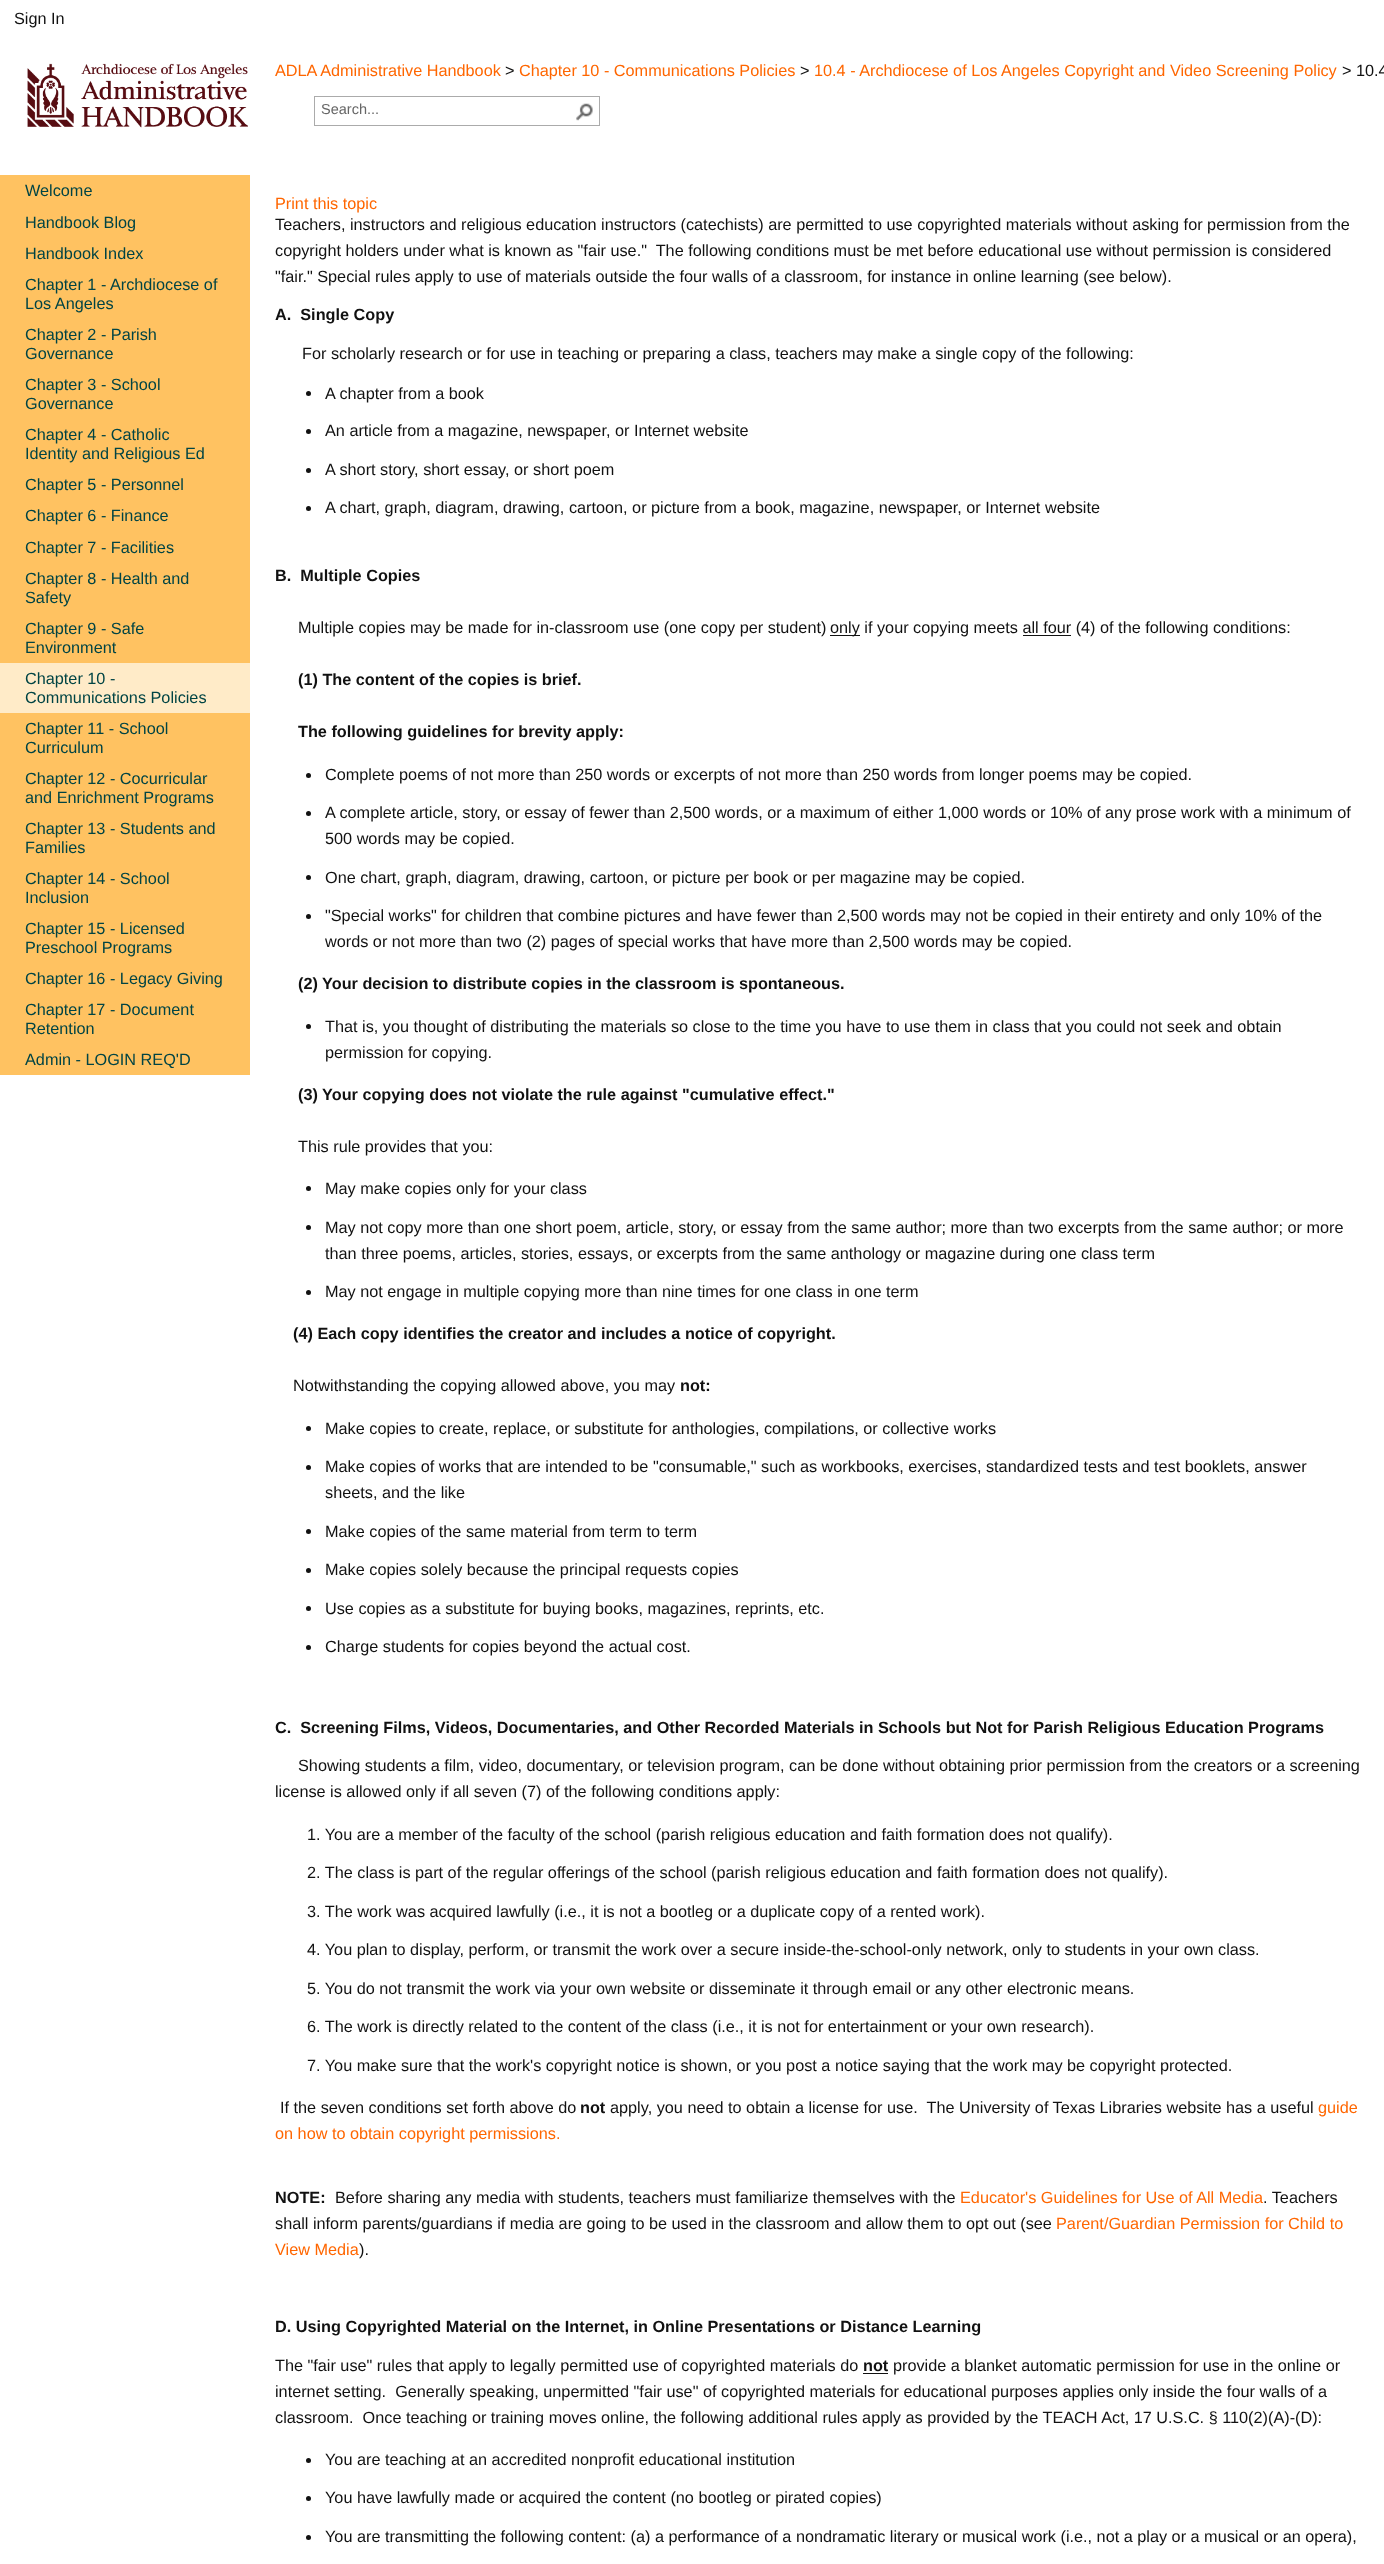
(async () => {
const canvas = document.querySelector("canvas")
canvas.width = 1384
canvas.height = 2564
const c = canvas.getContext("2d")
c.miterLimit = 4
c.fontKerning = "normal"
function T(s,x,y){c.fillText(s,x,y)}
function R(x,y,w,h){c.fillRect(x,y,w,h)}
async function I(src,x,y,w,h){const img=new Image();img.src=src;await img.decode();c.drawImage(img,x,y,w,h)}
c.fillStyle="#fff"
R(0,0,1384,2564)
c.font="16.25px Liberation Sans"
c.fillStyle="#111"
T("Sign In",14,24)
await I("1.png",27,63,221,65)
c.fillStyle="#f60"
T("ADLA Administrative Handbook",275,76)
c.fillStyle="#111"
T(">",505,76)
c.fillStyle="#f60"
T("Chapter 10 - Communications Policies",519,76)
c.fillStyle="#111"
T(">",800,76)
c.fillStyle="#f60"
T("10.4 - Archdiocese of Los Angeles Copyright and Video Screening Policy",814,76)
c.fillStyle="#111"
T("> 10.4",1342,76)
c.strokeStyle="#ababab"
c.strokeRect(314.5,96.5,285,29)
c.font="14.5px Liberation Sans"
c.fillStyle="#666"
T("Search...",321,114)
await I("2.png",576,103,17,18)
c.fillStyle="#ffc261"
R(0,175,250,900)
c.font="16.25px Liberation Sans"
c.fillStyle="#044"
T("Welcome",25,196)
T("Handbook Blog",25,228)
T("Handbook Index",25,259)
T("Chapter 1 - Archdiocese of",25,290)
T("Los Angeles",25,309)
T("Chapter 2 - Parish",25,340)
T("Governance",25,359)
T("Chapter 3 - School",25,390)
T("Governance",25,409)
T("Chapter 4 - Catholic",25,440)
T("Identity and Religious Ed",25,459)
T("Chapter 5 - Personnel",25,490)
T("Chapter 6 - Finance",25,521)
T("Chapter 7 - Facilities",25,553)
T("Chapter 8 - Health and",25,584)
T("Safety",25,603)
T("Chapter 9 - Safe",25,634)
T("Environment",25,653)
c.fillStyle="#ffebc8"
R(0,663,250,50)
c.fillStyle="#044"
T("Chapter 10 -",25,684)
T("Communications Policies",25,703)
T("Chapter 11 - School",25,734)
T("Curriculum",25,753)
T("Chapter 12 - Cocurricular",25,784)
T("and Enrichment Programs",25,803)
T("Chapter 13 - Students and",25,834)
T("Families",25,853)
T("Chapter 14 - School",25,884)
T("Inclusion",25,903)
T("Chapter 15 - Licensed",25,934)
T("Preschool Programs",25,953)
T("Chapter 16 - Legacy Giving",25,984)
T("Chapter 17 - Document",25,1015)
T("Retention",25,1034)
T("Admin - LOGIN REQ'D",25,1065)
c.fillStyle="#f60"
T("Print this topic",275,209)
c.fillStyle="#111"
T("Teachers, instructors and religious education instructors (catechists) are permitted to use copyrighted materials without asking for permission from the",275,230)
T("copyright holders under what is known as \"fair use.\"  The following conditions must be met before educational use without permission is considered",275,256)
T("\"fair.\" Special rules apply to use of materials outside the four walls of a classroom, for instance in online learning (see below).",275,282)
c.font="bold 16.25px Liberation Sans"
T("A.  Single Copy",275,320)
c.font="16.25px Liberation Sans"
T("For scholarly research or for use in teaching or preparing a class, teachers may make a single copy of the following:",302,359)
c.beginPath()
c.arc(308.5,393.5,2.5,0,7)
c.fill()
T("A chapter from a book",325,399)
c.beginPath()
c.arc(308.5,431.5,2.5,0,7)
c.fill()
T("An article from a magazine, newspaper, or Internet website",325,436)
c.beginPath()
c.arc(308.5,470.5,2.5,0,7)
c.fill()
T("A short story, short essay, or short poem",325,475)
c.beginPath()
c.arc(308.5,508.5,2.5,0,7)
c.fill()
T("A chart, graph, diagram, drawing, cartoon, or picture from a book, magazine, newspaper, or Internet website",325,513)
c.font="bold 16.25px Liberation Sans"
T("B.  Multiple Copies",275,581)
c.font="16.25px Liberation Sans"
T("Multiple copies may be made for in-classroom use (one copy per student)",298,633)
R(830,635,30,1)
T("only if your copying meets all four (4) of the following conditions:",830,633)
R(1023,635,48,1)
c.font="bold 16.25px Liberation Sans"
T("(1) The content of the copies is brief.",298,685)
T("The following guidelines for brevity apply:",298,737)
c.beginPath()
c.arc(308.5,775.5,2.5,0,7)
c.fill()
c.font="16.25px Liberation Sans"
T("Complete poems of not more than 250 words or excerpts of not more than 250 words from longer poems may be copied.",325,780)
c.beginPath()
c.arc(308.5,813.5,2.5,0,7)
c.fill()
T("A complete article, story, or essay of fewer than 2,500 words, or a maximum of either 1,000 words or 10% of any prose work with a minimum of",325,818)
T("500 words may be copied.",325,844)
c.beginPath()
c.arc(308.5,877.5,2.5,0,7)
c.fill()
T("One chart, graph, diagram, drawing, cartoon, or picture per book or per magazine may be copied.",325,883)
c.beginPath()
c.arc(308.5,916.5,2.5,0,7)
c.fill()
T("\"Special works\" for children that combine pictures and have fewer than 2,500 words may not be copied in their entirety and only 10% of the",325,921)
T("words or not more than two (2) pages of special works that have more than 2,500 words may be copied.",325,947)
c.font="bold 16.25px Liberation Sans"
T("(2) Your decision to distribute copies in the classroom is spontaneous.",298,989)
c.beginPath()
c.arc(308.5,1026.5,2.5,0,7)
c.fill()
c.font="16.25px Liberation Sans"
T("That is, you thought of distributing the materials so close to the time you have to use them in class that you could not seek and obtain",325,1032)
T("permission for copying.",325,1058)
c.font="bold 16.25px Liberation Sans"
T("(3) Your copying does not violate the rule against \"cumulative effect.\"",298,1100)
c.font="16.25px Liberation Sans"
T("This rule provides that you:",298,1152)
c.beginPath()
c.arc(308.5,1188.5,2.5,0,7)
c.fill()
T("May make copies only for your class",325,1194)
c.beginPath()
c.arc(308.5,1227.5,2.5,0,7)
c.fill()
T("May not copy more than one short poem, article, story, or essay from the same author; more than two excerpts from the same author; or more",325,1233)
T("than three poems, articles, stories, essays, or excerpts from the same anthology or magazine during one class term",325,1259)
c.beginPath()
c.arc(308.5,1292.5,2.5,0,7)
c.fill()
T("May not engage in multiple copying more than nine times for one class in one term",325,1297)
c.font="bold 16.25px Liberation Sans"
T("(4) Each copy identifies the creator and includes a notice of copyright.",293,1339)
c.font="16.25px Liberation Sans"
T("Notwithstanding the copying allowed above, you may",293,1391)
c.font="bold 16.25px Liberation Sans"
T("not:",680,1391)
c.beginPath()
c.arc(308.5,1428.5,2.5,0,7)
c.fill()
c.font="16.25px Liberation Sans"
T("Make copies to create, replace, or substitute for anthologies, compilations, or collective works",325,1434)
c.beginPath()
c.arc(308.5,1467.5,2.5,0,7)
c.fill()
T("Make copies of works that are intended to be \"consumable,\" such as workbooks, exercises, standardized tests and test booklets, answer",325,1472)
T("sheets, and the like",325,1498)
c.beginPath()
c.arc(308.5,1531.5,2.5,0,7)
c.fill()
T("Make copies of the same material from term to term",325,1537)
c.beginPath()
c.arc(308.5,1570.5,2.5,0,7)
c.fill()
T("Make copies solely because the principal requests copies",325,1575)
c.beginPath()
c.arc(308.5,1608.5,2.5,0,7)
c.fill()
T("Use copies as a substitute for buying books, magazines, reprints, etc.",325,1614)
c.beginPath()
c.arc(308.5,1647.5,2.5,0,7)
c.fill()
T("Charge students for copies beyond the actual cost.",325,1652)
c.font="bold 16.25px Liberation Sans"
T("C.  Screening Films, Videos, Documentaries, and Other Recorded Materials in Schools but Not for Parish Religious Education Programs",275,1733)
c.font="16.25px Liberation Sans"
T("Showing students a film, video, documentary, or television program, can be done without obtaining prior permission from the creators or a screening",298,1771)
T("license is allowed only if all seven (7) of the following conditions apply:",275,1797)
T("1. You are a member of the faculty of the school (parish religious education and faith formation does not qualify).",307,1840)
T("2. The class is part of the regular offerings of the school (parish religious education and faith formation does not qualify).",307,1878)
T("3. The work was acquired lawfully (i.e., it is not a bootleg or a duplicate copy of a rented work).",307,1917)
T("4. You plan to display, perform, or transmit the work over a secure inside-the-school-only network, only to students in your own class.",307,1955)
T("5. You do not transmit the work via your own website or disseminate it through email or any other electronic means.",307,1994)
T("6. The work is directly related to the content of the class (i.e., it is not for entertainment or your own research).",307,2032)
T("7. You make sure that the work's copyright notice is shown, or you post a notice saying that the work may be copyright protected.",307,2071)
T("If the seven conditions set forth above do",280,2113)
c.font="bold 16.25px Liberation Sans"
T("not",580,2113)
c.font="16.25px Liberation Sans"
T("apply, you need to obtain a license for use.  The University of Texas Libraries website has a useful",610,2113)
c.fillStyle="#f60"
T("guide",1318,2113)
T("on how to obtain copyright permissions.",275,2139)
c.font="bold 16.25px Liberation Sans"
c.fillStyle="#111"
T("NOTE:",275,2203)
c.font="16.25px Liberation Sans"
T("Before sharing any media with students, teachers must familiarize themselves with the",335,2203)
c.fillStyle="#f60"
T("Educator's Guidelines for Use of All Media",960,2203)
c.fillStyle="#111"
T(". Teachers",1263,2203)
T("shall inform parents/guardians if media are going to be used in the classroom and allow them to opt out (see",275,2229)
c.fillStyle="#f60"
T("Parent/Guardian Permission for Child to",1056,2229)
T("View Media",275,2255)
c.fillStyle="#111"
T(").",359,2255)
c.font="bold 16.25px Liberation Sans"
T("D. Using Copyrighted Material on the Internet, in Online Presentations or Distance Learning",275,2332)
c.font="16.25px Liberation Sans"
T("The \"fair use\" rules that apply to legally permitted use of copyrighted materials do",275,2371)
c.font="bold 16.25px Liberation Sans"
T("not",863,2371)
R(863,2373,25,1)
c.font="16.25px Liberation Sans"
T("provide a blanket automatic permission for use in the online or",893,2371)
T("internet setting.  Generally speaking, unpermitted \"fair use\" of copyrighted materials for educational purposes applies only inside the four walls of a",275,2397)
T("classroom.  Once teaching or training moves online, the following additional rules apply as provided by the TEACH Act, 17 U.S.C. § 110(2)(A)-(D):",275,2423)
c.beginPath()
c.arc(308.5,2460.5,2.5,0,7)
c.fill()
T("You are teaching at an accredited nonprofit educational institution",325,2465)
c.beginPath()
c.arc(308.5,2498.5,2.5,0,7)
c.fill()
T("You have lawfully made or acquired the content (no bootleg or pirated copies)",325,2503)
c.beginPath()
c.arc(308.5,2537.5,2.5,0,7)
c.fill()
T("You are transmitting the following content: (a) a performance of a nondramatic literary or musical work (i.e., not a play or a musical or an opera),",325,2542)
})()
